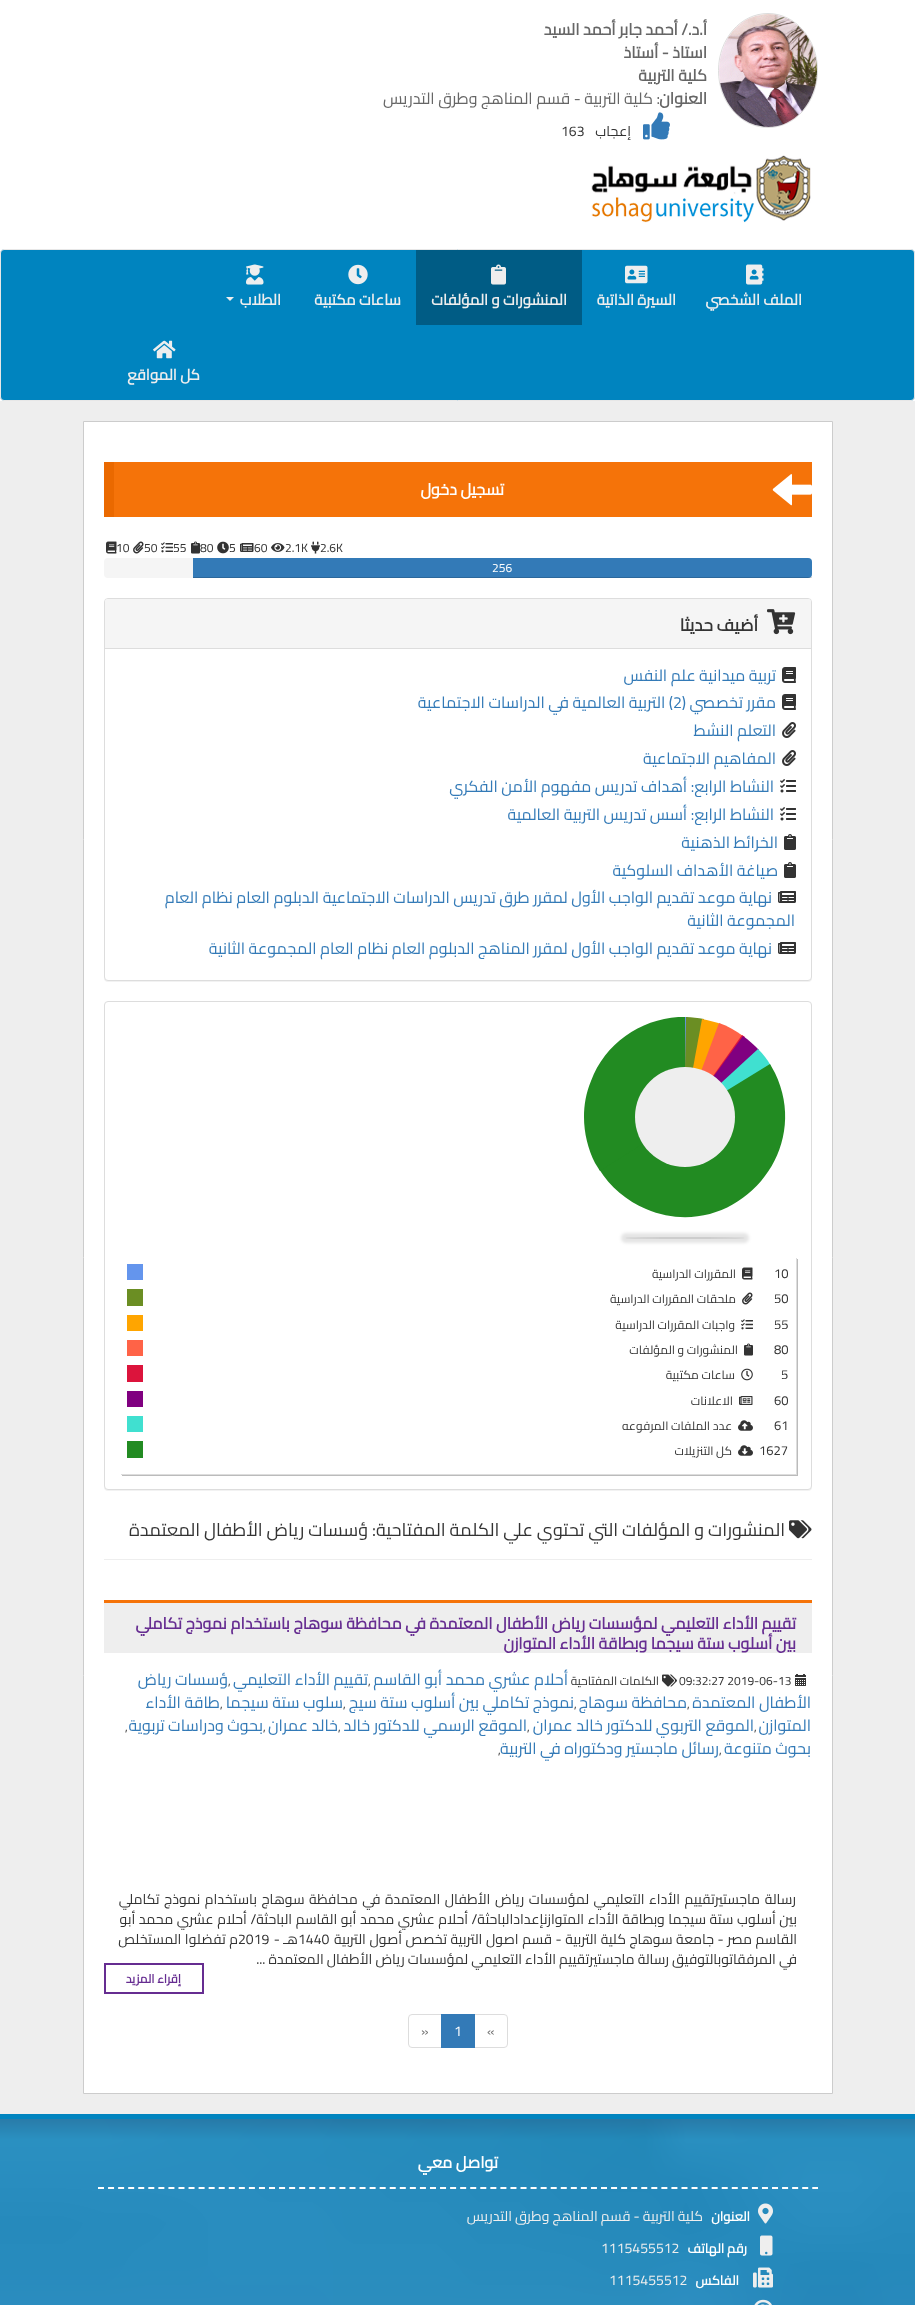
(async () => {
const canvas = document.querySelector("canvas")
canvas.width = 915
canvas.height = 2305
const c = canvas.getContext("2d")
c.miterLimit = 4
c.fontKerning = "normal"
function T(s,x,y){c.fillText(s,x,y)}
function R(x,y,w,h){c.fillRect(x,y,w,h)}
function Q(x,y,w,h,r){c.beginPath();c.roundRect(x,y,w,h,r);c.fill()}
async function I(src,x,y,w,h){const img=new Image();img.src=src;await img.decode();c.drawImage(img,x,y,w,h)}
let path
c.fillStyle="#fff"
R(0,0,915,2305)
path = new Path2D("M768 13.5c27.5 0 49.5 25.5 49.5 57c0 31.5-22 57-49.5 57c-27.5 0-49.5-25.5-49.5-57c0-31.5 22-57 49.5-57z")
c.strokeStyle="#ddd"
c.stroke(path)
await I("1.png",719,14,98,113)
c.direction="rtl"
c.font="bold 16px Cairo"
c.fillStyle="#666"
T("أ.د./ أحمد جابر أحمد السيد",707,35)
T("استاذ - أستاذ",707,58)
T("كلية التربية",707,81)
T("العنوان",707,104)
c.font="16px Cairo"
T(": كلية التربية - قسم المناهج وطرق التدريس",660,104)
await I("2.png",643,112,27,28)
c.font="14px Cairo"
c.fillStyle="#333"
T("إعجاب",631,136)
c.direction="ltr"
T("163",561,136)
await I("3.png",591,155,220,68)
c.fillStyle="#0084bf"
c.beginPath()
c.roundRect(.5,249.5,914,151,3.5)
c.fill()
c.strokeStyle="#e7e7e7"
c.stroke()
await I("4.png",746,264,18,21)
c.direction="rtl"
c.font="bold 15px Cairo"
c.fillStyle="#eee"
T("الملف الشخصي",802,305)
await I("5.png",625,265,23,19)
T("السيرة الذاتية",676,305)
c.fillStyle="#005c85"
R(416,250,166,75)
await I("6.png",491,264,15,21)
c.fillStyle="#eee"
T("المنشورات و المؤلفات",567,305)
await I("7.png",348,264,20,21)
T("ساعات مكتبية",401,305)
await I("8.png",246,264,18,21)
T("الطلاب",281,305)
path = new Path2D("M226 297h8l-4 4z")
c.fill(path)
await I("9.png",153,340,23,19)
T("كل المواقع",200,380)
R(0,401,915,1713)
c.fillStyle="#fff"
c.beginPath()
c.rect(83.5,421.5,749,1672)
c.fill()
c.strokeStyle="#ccc"
c.stroke()
c.fillStyle="#f57309"
R(114,462,698,55)
c.fillStyle="#ea6900"
R(104,462,10,55)
await I("10.png",772,474,40,32)
c.font="bold 16px Cairo"
c.fillStyle="#fff"
T("تسجيل دخول",504,495)
c.direction="ltr"
c.font="12px Cairo"
c.fillStyle="#333"
T("2.6K",320,552)
await I("11.png",311,541,9,13)
T("2.1K",285,552)
await I("12.png",271,543,14,9)
T("60",254,552)
await I("13.png",240,543,14,9)
T("5",229,552)
await I("14.png",217,541,12,13)
T("80",200,552)
await I("15.png",191,541,9,13)
T("55",173,552)
await I("16.png",161,542,12,11)
T("50",144,552)
await I("17.png",133,541,11,13)
T("10",116,552)
await I("18.png",106,541,11,13)
c.fillStyle="#f5f5f5"
Q(104,558,708,20,4)
c.fillStyle="#337ab7"
c.beginPath()
c.roundRect(193,558,619,20,[0,4,4,0])
c.fill()
c.fillStyle="#00000026"
R(193,577,619,1)
c.fillStyle="#fff"
T("256",492,572)
c.fillStyle="#0000000d"
c.filter="blur(0.5px)"
c.beginPath()
c.roundRect(104,599,708,383,4)
c.fill()
c.filter="none"
c.fillStyle="#fff"
c.beginPath()
c.roundRect(104.5,598.5,707,382,3.5)
c.fill()
c.strokeStyle="#ddd"
c.stroke()
c.fillStyle="#f5f5f5"
c.beginPath()
c.roundRect(105,599,706,50,[3,3,0,0])
c.fill()
c.fillStyle="#ddd"
R(105,648,706,1)
await I("19.png",767,609,29,26)
c.direction="rtl"
c.font="bold 17px Cairo"
c.fillStyle="#333"
T("أضيف حديثا",758,631)
await I("20.png",782,667,14,16)
c.font="16px Cairo"
c.fillStyle="#337ab7"
T("تربية ميدانية علم النفس",776,681)
await I("20.png",782,694,14,16)
T("مقرر تخصصي (",776,708)
c.direction="ltr"
T("2",673,708)
c.direction="rtl"
T(") التربية العالمية في الدراسات الاجتماعية",673,708)
await I("21.png",782,722,14,16)
T("التعلم النشط",776,736)
await I("21.png",782,750,14,16)
T("المفاهيم الاجتماعية",776,764)
await I("22.png",780,779,16,14)
T("النشاط الرابع: أهداف تدريس مفهوم الأمن الفكري",774,792)
await I("22.png",780,807,16,14)
T("النشاط الرابع: أسس تدريس التربية العالمية",774,820)
await I("23.png",784,834,12,16)
T("الخرائط الذهنية",778,848)
await I("23.png",784,862,12,16)
T("صياغة الأهداف السلوكية",778,876)
await I("24.png",778,891,18,12)
T("نهاية موعد تقديم الواجب الأول لمقرر طرق تدريس الدراسات الاجتماعية الدبلوم العام نظام العام",772,903)
T("المجموعة الثانية",795,926)
await I("24.png",778,942,18,12)
T("نهاية موعد تقديم الواجب الأول لمقرر المناهج الدبلوم العام نظام العام المجموعة الثانية",772,954)
c.fillStyle="#0000000d"
c.filter="blur(0.5px)"
c.beginPath()
c.roundRect(104,1002,708,489,4)
c.fill()
c.filter="none"
c.fillStyle="#fff"
c.beginPath()
c.roundRect(104.5,1001.5,707,488,3.5)
c.fill()
c.stroke()
c.fillStyle="#6495ed"
path = new Path2D("M688 1017l-4 100l-1-100z")
c.fill(path)
c.fillStyle="#6b8e23"
path = new Path2D("M704 1019l-20 98l2-100c6 0 12 1 18 2z")
c.fill(path)
c.fillStyle="#ffa500"
path = new Path2D("M721 1024l-37 93l18-98c6 1 13 3 19 5z")
c.fill(path)
c.fillStyle="#ff6347"
path = new Path2D("M719 1023c9 3 17 8 24 13l-59 81z")
c.fill(path)
c.fillStyle="#dc143c"
path = new Path2D("M742 1035l3 2l-61 80z")
c.fill(path)
c.fillStyle="#800080"
path = new Path2D("M743 1036c6 4 11 9 16 14l-75 67z")
c.fill(path)
c.fillStyle="#40e0d0"
path = new Path2D("M758 1049c5 5 9 10 13 17l-87 51z")
c.fill(path)
c.fillStyle="#228b22"
path = new Path2D("M770 1064l-171 105c11 18 28 32 47 40c84 36 169-53 129-136z")
c.fill(path)
c.save()
c.beginPath()
c.rect(584,1017,101,200)
c.clip()
path = new Path2D("M600 1171l169-108c-12-18-29-32-49-40c-52-19-110 7-129 58c-5 12-7 24-7 36c0 16 4 32 11 46z")
c.fill(path)
c.restore()
c.fillStyle="#eee"
c.beginPath()
c.arc(685,1117,50,0,7)
c.fill()
c.fillStyle="#0000001a"
c.filter="blur(1.5px)"
c.beginPath()
c.roundRect(621,1233,128,10,5)
c.fill()
c.filter="none"
c.beginPath()
c.ellipse(685,1238,60,1,0,0,7)
c.fill()
c.fillStyle="#bbb"
path = new Path2D("M122 1474v2h676v-217h-2v215z")
c.fill(path)
c.fillStyle="#ddd"
path = new Path2D("M121 1474v1h676v-217h-1v216z")
c.fill(path)
c.fillStyle="#6495ed"
R(127,1264,16,16)
c.direction="ltr"
c.font="13px Cairo"
c.fillStyle="#333"
T("10",774,1278)
await I("18.png",742,1267,11,13)
c.direction="rtl"
c.font="12px Cairo"
T("المقررات الدراسية",736,1278)
c.fillStyle="#6b8e23"
R(127,1289,16,17)
c.direction="ltr"
c.font="13px Cairo"
c.fillStyle="#333"
T("50",774,1303)
await I("17.png",742,1292,11,13)
c.direction="rtl"
c.font="12px Cairo"
T("ملحقات المقررات الدراسية",736,1303)
c.fillStyle="#ffa500"
R(127,1315,16,16)
c.direction="ltr"
c.font="13px Cairo"
c.fillStyle="#333"
T("55",774,1329)
await I("16.png",741,1319,12,11)
c.direction="rtl"
c.font="12px Cairo"
T("واجبات المقررات الدراسية",735,1329)
c.fillStyle="#ff6347"
R(127,1340,16,16)
c.direction="ltr"
c.font="13px Cairo"
c.fillStyle="#333"
T("80",774,1354)
await I("15.png",744,1343,9,13)
c.direction="rtl"
c.font="12px Cairo"
T("المنشورات و المؤلفات",738,1354)
c.fillStyle="#dc143c"
R(127,1365,16,17)
c.direction="ltr"
c.font="13px Cairo"
c.fillStyle="#333"
T("5",781,1379)
await I("25.png",741,1368,12,13)
c.direction="rtl"
c.font="12px Cairo"
T("ساعات مكتبية",735,1379)
c.fillStyle="#800080"
R(127,1391,16,16)
c.direction="ltr"
c.font="13px Cairo"
c.fillStyle="#333"
T("60",774,1405)
await I("26.png",739,1396,14,9)
c.direction="rtl"
c.font="12px Cairo"
T("الاعلانات",733,1405)
c.fillStyle="#40e0d0"
R(127,1416,16,16)
c.direction="ltr"
c.font="13px Cairo"
c.fillStyle="#333"
T("61",774,1430)
await I("27.png",738,1420,15,11)
c.direction="rtl"
c.font="12px Cairo"
T("عدد الملفات المرفوعه",732,1430)
c.fillStyle="#228b22"
R(127,1441,16,17)
c.direction="ltr"
c.font="13px Cairo"
c.fillStyle="#333"
T("1627",759,1455)
await I("28.png",738,1445,15,11)
c.direction="rtl"
c.font="12px Cairo"
T("كل التنزيلات",732,1455)
await I("29.png",789,1520,23,19)
c.font="18px Cairo"
T("المنشورات و المؤلفات التي تحتوي علي الكلمة المفتاحية: ؤسسات رياض الأطفال المعتمدة",785,1536)
c.fillStyle="#eee"
R(104,1559,708,1)
R(104,1603,708,50)
c.fillStyle="#f57309"
R(104,1600,708,3)
c.font="bold 16px Cairo"
c.fillStyle="#662d91"
T("تقييم الأداء التعليمي لمؤسسات رياض الأطفال المعتمدة في محافظة سوهاج باستخدام نموذج تكاملي",796,1629)
T("بين أسلوب ستة سيجما وبطاقة الأداء المتوازن",796,1649)
await I("30.png",795,1674,11,12)
c.direction="ltr"
c.font="12px Cairo"
c.fillStyle="#333"
T("09:32:27 2019-06-13",679,1685)
await I("31.png",662,1674,15,13)
c.direction="rtl"
T("الكلمات المفتاحية",659,1685)
c.font="16px Cairo"
c.fillStyle="#337ab7"
T("أحلام عشري محمد أبو القاسم",568,1685)
c.direction="ltr"
c.font="12px Cairo"
c.fillStyle="#333"
T(",",368,1685)
c.direction="rtl"
c.font="16px Cairo"
c.fillStyle="#337ab7"
T("تقييم الأداء التعليمي",368,1685)
c.direction="ltr"
c.font="12px Cairo"
c.fillStyle="#333"
T(",",228,1685)
c.direction="rtl"
c.font="16px Cairo"
c.fillStyle="#337ab7"
T("ؤسسات رياض",228,1685)
T("الأطفال المعتمدة",811,1708)
c.direction="ltr"
c.font="12px Cairo"
c.fillStyle="#333"
T(",",687,1708)
c.direction="rtl"
c.font="16px Cairo"
c.fillStyle="#337ab7"
T("محافظة سوهاج",687,1708)
c.direction="ltr"
c.font="12px Cairo"
c.fillStyle="#333"
T(",",574,1708)
c.direction="rtl"
c.font="16px Cairo"
c.fillStyle="#337ab7"
T("نموذج تكاملي بين أسلوب ستة سيج",574,1708)
c.direction="ltr"
c.font="12px Cairo"
c.fillStyle="#333"
T(",",343,1708)
c.direction="rtl"
c.font="16px Cairo"
c.fillStyle="#337ab7"
T("سلوب ستة سيجما",343,1708)
c.direction="ltr"
c.font="12px Cairo"
c.fillStyle="#333"
T(",",220,1708)
c.direction="rtl"
c.font="16px Cairo"
c.fillStyle="#337ab7"
T("طاقة الأداء",220,1708)
T("المتوازن",811,1731)
c.direction="ltr"
c.font="12px Cairo"
c.fillStyle="#333"
T(",",754,1731)
c.direction="rtl"
c.font="16px Cairo"
c.fillStyle="#337ab7"
T("الموقع التربوي للدكتور خالد عمران",754,1731)
c.direction="ltr"
c.font="12px Cairo"
c.fillStyle="#333"
T(",",527,1731)
c.direction="rtl"
c.font="16px Cairo"
c.fillStyle="#337ab7"
T("الموقع الرسمي للدكتور خالد",527,1731)
c.direction="ltr"
c.font="12px Cairo"
c.fillStyle="#333"
T(",",338,1731)
c.direction="rtl"
c.font="16px Cairo"
c.fillStyle="#337ab7"
T("خالد عمران",338,1731)
c.direction="ltr"
c.font="12px Cairo"
c.fillStyle="#333"
T(",",263,1731)
c.direction="rtl"
c.font="16px Cairo"
c.fillStyle="#337ab7"
T("بحوث ودراسات تربوية",263,1731)
c.direction="ltr"
c.font="12px Cairo"
c.fillStyle="#333"
T(",",125,1731)
c.direction="rtl"
c.font="16px Cairo"
c.fillStyle="#337ab7"
T("بحوث متنوعة",811,1754)
c.direction="ltr"
c.font="12px Cairo"
c.fillStyle="#333"
T(",",719,1754)
c.direction="rtl"
c.font="16px Cairo"
c.fillStyle="#337ab7"
T("رسائل ماجستير ودكتوراه في التربية",719,1754)
c.direction="ltr"
c.font="12px Cairo"
c.fillStyle="#333"
T(",",498,1754)
c.wordSpacing="1.5px"
c.direction="rtl"
c.font="14px Cairo"
T("رسالة ماجستيرتقييم الأداء التعليمي لمؤسسات رياض الأطفال المعتمدة في محافظة سوهاج باستخدام نموذج تكاملي",796,1904)
c.wordSpacing="0.5px"
T("بين أسلوب ستة سيجما وبطاقة الأداء المتوازنإعدادالباحثة/ أحلام عشري محمد أبو القاسم الباحثة/ أحلام عشري محمد أبو",797,1924)
T("القاسم مصر - جامعة سوهاج كلية التربية - قسم اصول التربية تخصص أصول التربية",797,1944)
c.wordSpacing="0px"
c.direction="ltr"
T("1440",298,1944)
c.wordSpacing="0.5px"
c.direction="rtl"
T("هـ -",298,1944)
c.wordSpacing="0px"
c.direction="ltr"
T("2019",238,1944)
c.wordSpacing="0.5px"
c.direction="rtl"
T("م تفضلوا المستخلص",238,1944)
c.wordSpacing="0px"
T("في المرفقاتوبالتوفيق رسالة ماجستيرتقييم الأداء التعليمي لمؤسسات رياض الأطفال المعتمدة ...",797,1964)
c.strokeStyle="#662d91"
c.lineWidth=2
c.strokeRect(105,1964,98,29)
c.font="bold 12px Cairo"
c.fillStyle="#662d91"
T("إقراء المزيد",181,1983)
c.beginPath()
c.roundRect(474.5,2014.5,33,33,[0,3.5,3.5,0])
c.strokeStyle="#ddd"
c.lineWidth=1
c.stroke()
c.direction="ltr"
c.font="14px Cairo"
c.fillStyle="#777"
T("«",487,2036)
c.beginPath()
c.roundRect(408.5,2014.5,33,33,[3.5,0,0,3.5])
c.stroke()
c.fillStyle="#337ab7"
R(441,2014,34,34)
c.fillStyle="#fff"
T("1",454,2036)
c.fillStyle="#777"
T("»",421,2036)
await I("32.png",0,2119,915,186)
c.fillStyle="#0084bf"
R(0,2114,915,5)
path = new Path2D("M98 2188h720")
c.strokeStyle="#fff"
c.lineWidth=2
c.setLineDash([6,4.06])
c.stroke(path)
c.direction="rtl"
c.font="bold 16px Cairo"
c.fillStyle="#fff"
T("تواصل معي",498,2168)
await I("33.png",758,2203,15,21)
c.font="bold 13px Cairo"
T("العنوان",750,2221)
c.font="14px Cairo"
c.fillStyle="#eee"
T("كلية التربية - قسم المناهج وطرق التدريس",703,2221)
await I("34.png",760,2235,13,21)
c.font="bold 13px Cairo"
c.fillStyle="#fff"
T("رقم الهاتف",747,2253)
c.direction="ltr"
c.font="14px Cairo"
c.fillStyle="#eee"
T("1115455512",601,2253)
await I("35.png",753,2267,20,21)
c.direction="rtl"
c.font="bold 13px Cairo"
c.fillStyle="#fff"
T("الفاكس",739,2285)
c.direction="ltr"
c.font="14px Cairo"
c.fillStyle="#eee"
T("1115455512",609,2285)
await I("36.png",754,2299,18,6)
})()
